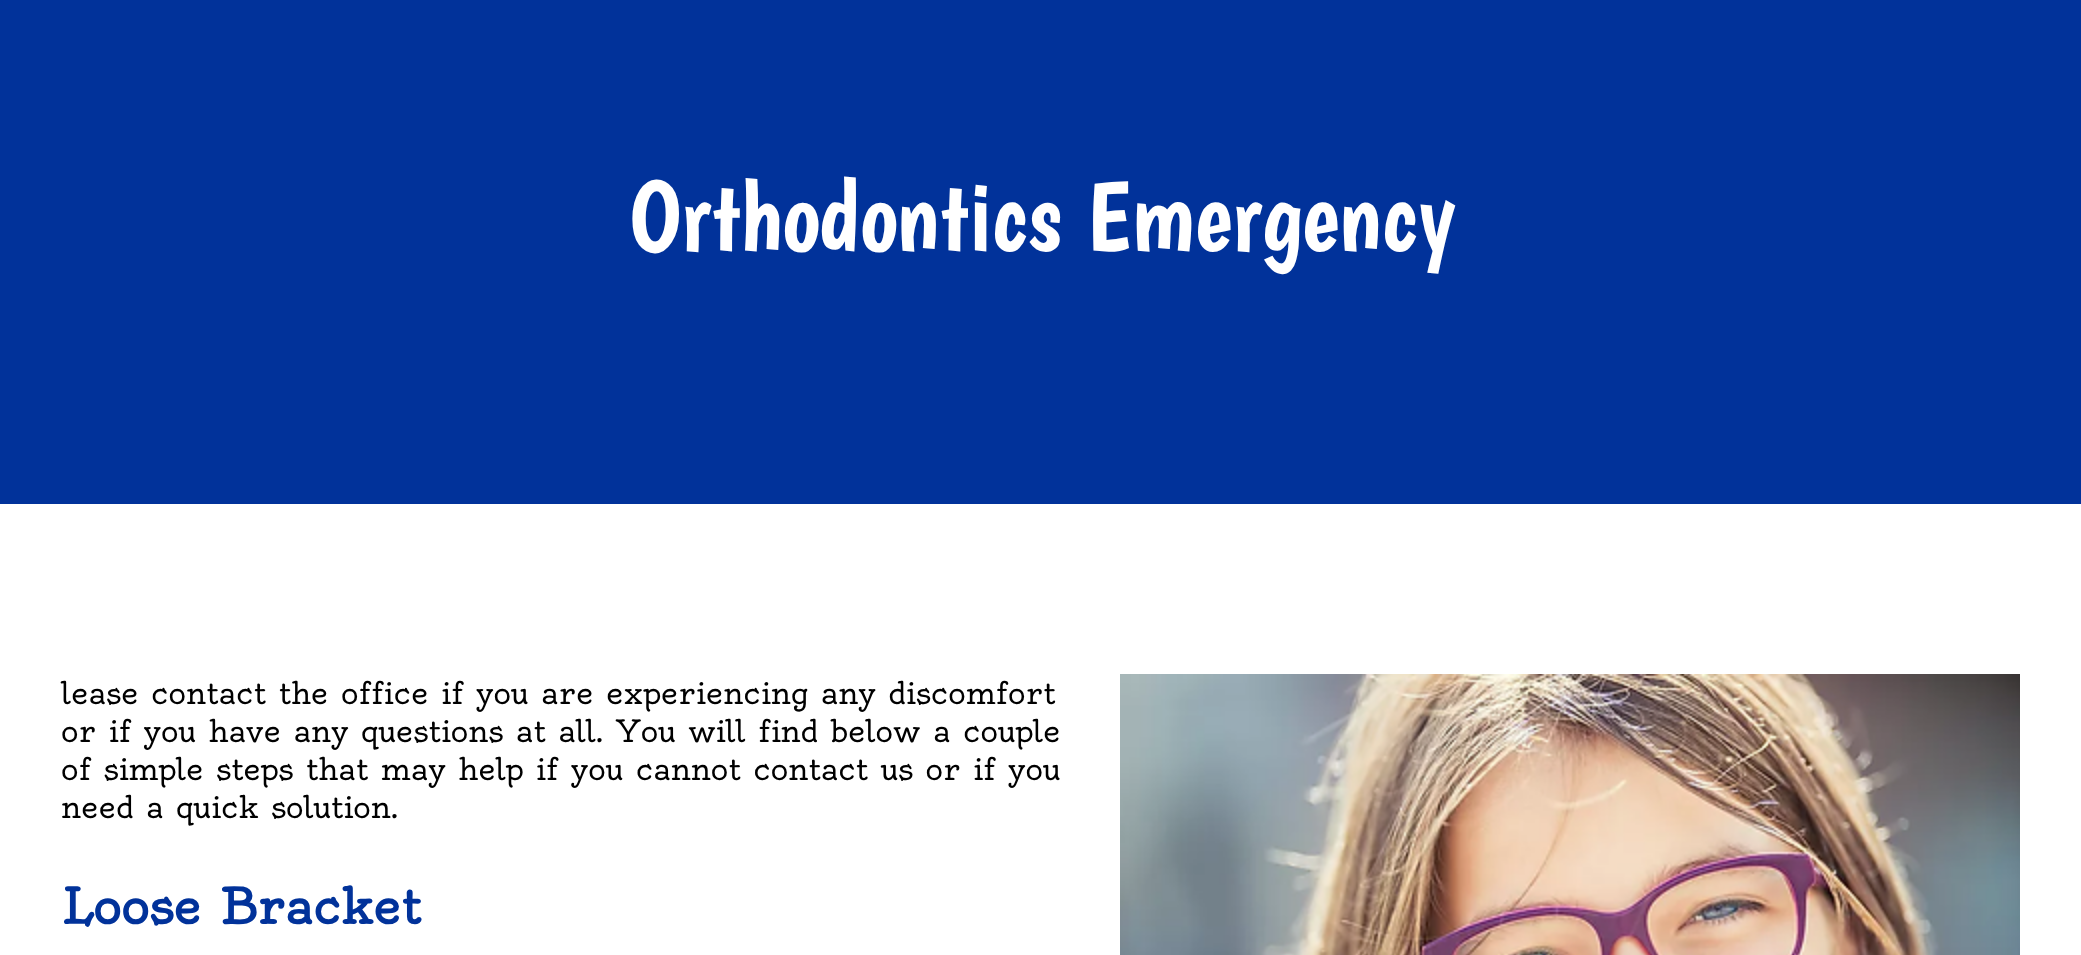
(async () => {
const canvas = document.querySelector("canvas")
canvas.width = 2081
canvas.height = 955
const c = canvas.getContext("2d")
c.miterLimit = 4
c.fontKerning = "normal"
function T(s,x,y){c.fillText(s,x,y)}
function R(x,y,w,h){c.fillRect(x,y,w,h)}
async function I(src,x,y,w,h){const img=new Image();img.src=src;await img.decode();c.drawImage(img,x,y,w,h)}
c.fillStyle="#fff"
R(0,0,2081,955)
c.fillStyle="#01329a"
R(0,0,2081,504)
c.font="100px Boogaloo"
c.fillStyle="#fff"
T("Orthodontics Emergency",629,250)
c.font="30px Oldenburg"
c.fillStyle="#000"
T("lease contact the office if you are experiencing any discomfort",61,704)
T("or if you have any questions at all. You will find below a couple",61,742)
T("of simple steps that may help if you cannot contact us or if you",61,780)
T("need a quick solution.",61,818)
await I("1.png",1120,674,900,281)
c.font="bold 48px Oldenburg"
c.fillStyle="#01329a"
T("Loose Bracket",61,924)
})()
